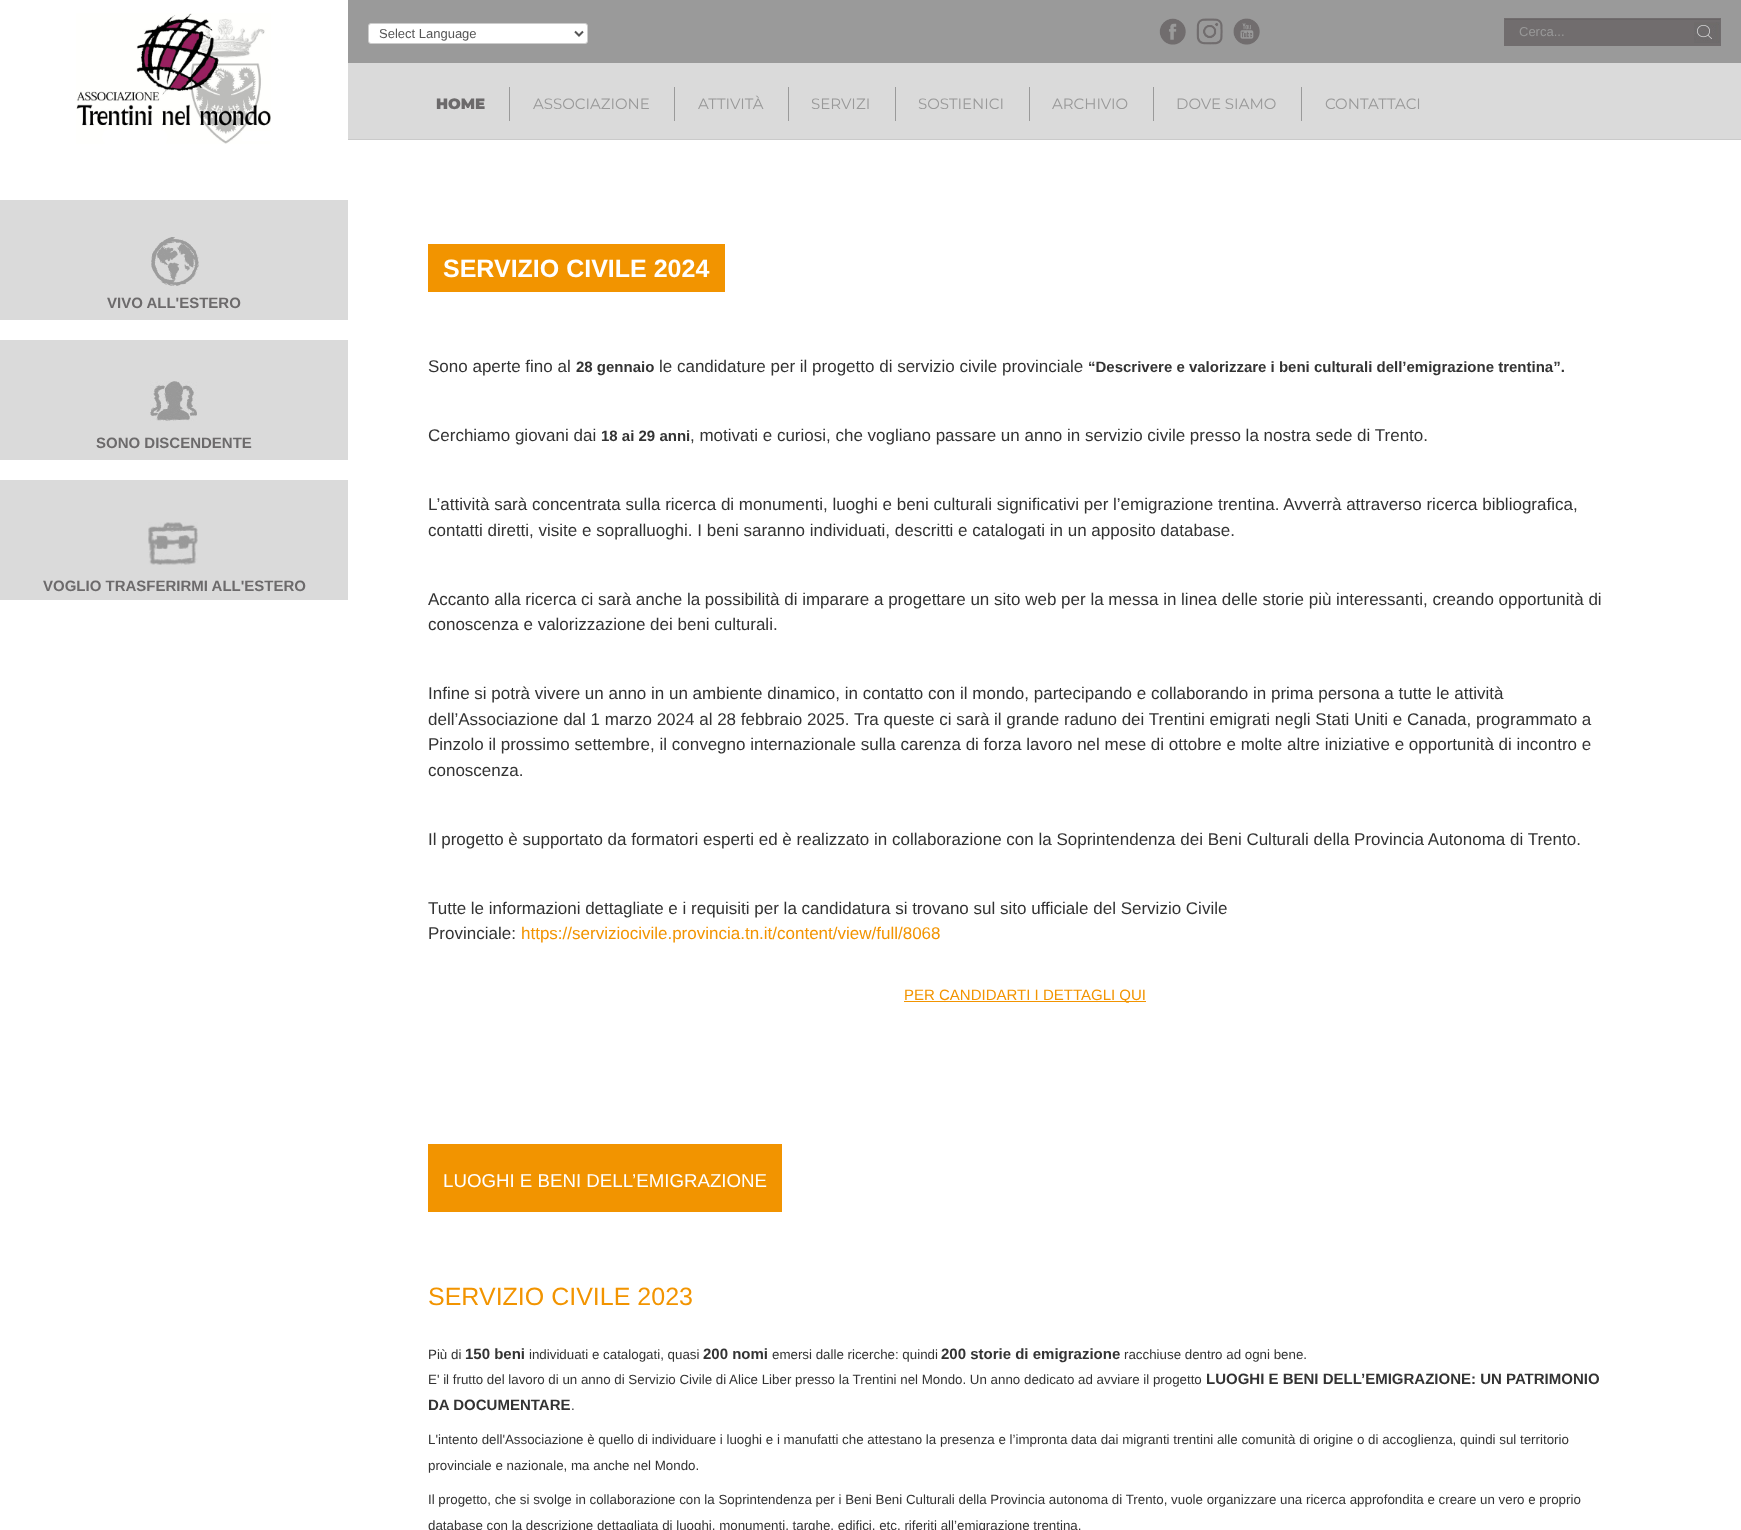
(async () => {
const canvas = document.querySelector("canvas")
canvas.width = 1741
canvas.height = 1530
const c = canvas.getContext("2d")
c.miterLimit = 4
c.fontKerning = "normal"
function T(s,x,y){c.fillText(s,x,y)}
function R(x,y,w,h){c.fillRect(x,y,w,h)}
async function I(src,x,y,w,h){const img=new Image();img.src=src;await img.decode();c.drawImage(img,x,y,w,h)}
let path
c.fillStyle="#fff"
R(0,0,1741,1530)
await I("1.png",76,13,195,131)
c.fillStyle="#dadada"
R(0,200,348,120)
await I("2.png",151,237,48,49)
c.font="bold 15px Liberation Sans"
c.fillStyle="#6c6a6b"
T("VIVO ALL'ESTERO",107,308)
c.fillStyle="#dadada"
R(0,340,348,120)
await I("3.png",150,381,47,40)
c.fillStyle="#6c6a6b"
T("SONO DISCENDENTE",96,448)
c.fillStyle="#dadada"
R(0,480,348,120)
await I("4.png",148,522,50,43)
c.fillStyle="#6c6a6b"
T("VOGLIO TRASFERIRMI ALL'ESTERO",43,591)
c.fillStyle="#9a9a9a"
R(348,0,1393,63)
c.fillStyle="#fff"
c.beginPath()
c.roundRect(368.5,23.5,219,20,2.5)
c.fill()
c.strokeStyle="#ccc"
c.stroke()
path = new Path2D("M575 31.5l4 4l4-4")
c.strokeStyle="#555"
c.lineWidth=2
c.stroke(path)
c.font="13px Liberation Sans"
c.fillStyle="#555"
T("Select Language",379,38)
await I("5.png",1159,18,27,27)
await I("6.png",1196,18,27,27)
await I("7.png",1233,18,27,27)
c.fillStyle="#716d6e"
R(1504,18,217,28)
await I("8.png",1694,22,26,21)
c.fillStyle="#696566"
R(1505,19,215,1)
c.fillStyle="#999"
T("Cerca...",1519,36)
c.fillStyle="#dadada"
R(348,63,1393,76)
c.fillStyle="#cacaca"
R(348,139,1393,1)
c.fillStyle="#9a9a9a"
R(509,87,1,34)
c.font="900 15px Montserrat"
c.fillStyle="#6c6a6b"
T("HOME",436,109)
c.fillStyle="#9a9a9a"
R(674,87,1,34)
c.font="15px Montserrat"
c.fillStyle="#999"
T("ASSOCIAZIONE",533,109)
c.fillStyle="#9a9a9a"
R(788,87,1,34)
c.fillStyle="#999"
T("ATTIVITÀ",698,109)
c.fillStyle="#9a9a9a"
R(895,87,1,34)
c.fillStyle="#999"
T("SERVIZI",811,109)
c.fillStyle="#9a9a9a"
R(1029,87,1,34)
c.fillStyle="#999"
T("SOSTIENICI",918,109)
c.fillStyle="#9a9a9a"
R(1153,87,1,34)
c.fillStyle="#999"
T("ARCHIVIO",1052,109)
c.fillStyle="#9a9a9a"
R(1301,87,1,34)
c.fillStyle="#999"
T("DOVE SIAMO",1176,109)
T("CONTATTACI",1325,109)
c.fillStyle="#f29400"
R(428,244,297,48)
c.font="bold 25px Liberation Sans"
c.fillStyle="#fff"
T("SERVIZIO CIVILE 2024",443,277)
c.font="17px Liberation Sans"
c.fillStyle="#333"
T("Sono aperte fino al",428,372)
c.font="bold 15px Liberation Sans"
T("28 gennaio",576,372)
c.font="17px Liberation Sans"
T("le candidature per il progetto di servizio civile provinciale",659,372)
c.font="bold 15px Liberation Sans"
T("“Descrivere e valorizzare i beni culturali dell’emigrazione trentina”.",1088,372)
c.font="17px Liberation Sans"
T("Cerchiamo giovani dai",428,441)
c.font="bold 15px Liberation Sans"
T("18 ai 29 anni",601,441)
c.font="17px Liberation Sans"
T(", motivati e curiosi, che vogliano passare un anno in servizio civile presso la nostra sede di Trento.",690,441)
T("L’attività sarà concentrata sulla ricerca di monumenti, luoghi e beni culturali significativi per l’emigrazione trentina. Avverrà attraverso ricerca bibliografica,",428,510)
T("contatti diretti, visite e sopralluoghi. I beni saranno individuati, descritti e catalogati in un apposito database.",428,536)
T("Accanto alla ricerca ci sarà anche la possibilità di imparare a progettare un sito web per la messa in linea delle storie più interessanti, creando opportunità di",428,605)
T("conoscenza e valorizzazione dei beni culturali.",428,630)
T("Infine si potrà vivere un anno in un ambiente dinamico, in contatto con il mondo, partecipando e collaborando in prima persona a tutte le attività",428,699)
T("dell’Associazione dal 1 marzo 2024 al 28 febbraio 2025. Tra queste ci sarà il grande raduno dei Trentini emigrati negli Stati Uniti e Canada, programmato a",428,725)
T("Pinzolo il prossimo settembre, il convegno internazionale sulla carenza di forza lavoro nel mese di ottobre e molte altre iniziative e opportunità di incontro e",428,750)
T("conoscenza.",428,776)
T("Il progetto è supportato da formatori esperti ed è realizzato in collaborazione con la Soprintendenza dei Beni Culturali della Provincia Autonoma di Trento.",428,845)
T("Tutte le informazioni dettagliate e i requisiti per la candidatura si trovano sul sito ufficiale del Servizio Civile",428,914)
T("Provinciale:",428,939)
c.fillStyle="#f29400"
T("https://serviziocivile.provincia.tn.it/content/view/full/8068",521,939)
R(904,1001,242,1)
c.font="15px Liberation Sans"
T("PER CANDIDARTI I DETTAGLI QUI",904,1000)
R(428,1144,354,68)
c.font="18.7px Liberation Sans"
c.fillStyle="#fff"
T("LUOGHI E BENI DELL’EMIGRAZIONE",443,1187)
c.font="25px Liberation Sans"
c.fillStyle="#f29400"
T("SERVIZIO CIVILE 2023",428,1305)
c.font="13.33px Liberation Sans"
c.fillStyle="#333"
T("Più di",428,1359)
c.font="bold 15px Liberation Sans"
T("150 beni",465,1359)
c.font="13.33px Liberation Sans"
T("individuati e catalogati, quasi",529,1359)
c.font="bold 15px Liberation Sans"
T("200 nomi",703,1359)
c.font="13.33px Liberation Sans"
T("emersi dalle ricerche: quindi",772,1359)
c.font="bold 15px Liberation Sans"
T("200 storie di emigrazione",941,1359)
c.font="13.33px Liberation Sans"
T("racchiuse dentro ad ogni bene.",1124,1359)
T("E' il frutto del lavoro di un anno di Servizio Civile di Alice Liber presso la Trentini nel Mondo. Un anno dedicato ad avviare il progetto",428,1384)
c.font="bold 15px Liberation Sans"
T("LUOGHI E BENI DELL’EMIGRAZIONE: UN PATRIMONIO",1206,1384)
T("DA DOCUMENTARE",428,1410)
c.font="13.33px Liberation Sans"
T(".",571,1410)
T("L'intento dell'Associazione è quello di individuare i luoghi e i manufatti che attestano la presenza e l’impronta data dai migranti trentini alle comunità di origine o di accoglienza, quindi sul territorio",428,1444)
T("provinciale e nazionale, ma anche nel Mondo.",428,1470)
T("Il progetto, che si svolge in collaborazione con la Soprintendenza per i Beni Beni Culturali della Provincia autonoma di Trento, vuole organizzare una ricerca approfondita e creare un vero e proprio",428,1504)
T("database con la descrizione dettagliata di luoghi, monumenti, targhe, edifici, etc. riferiti all’emigrazione trentina.",428,1530)
})()
